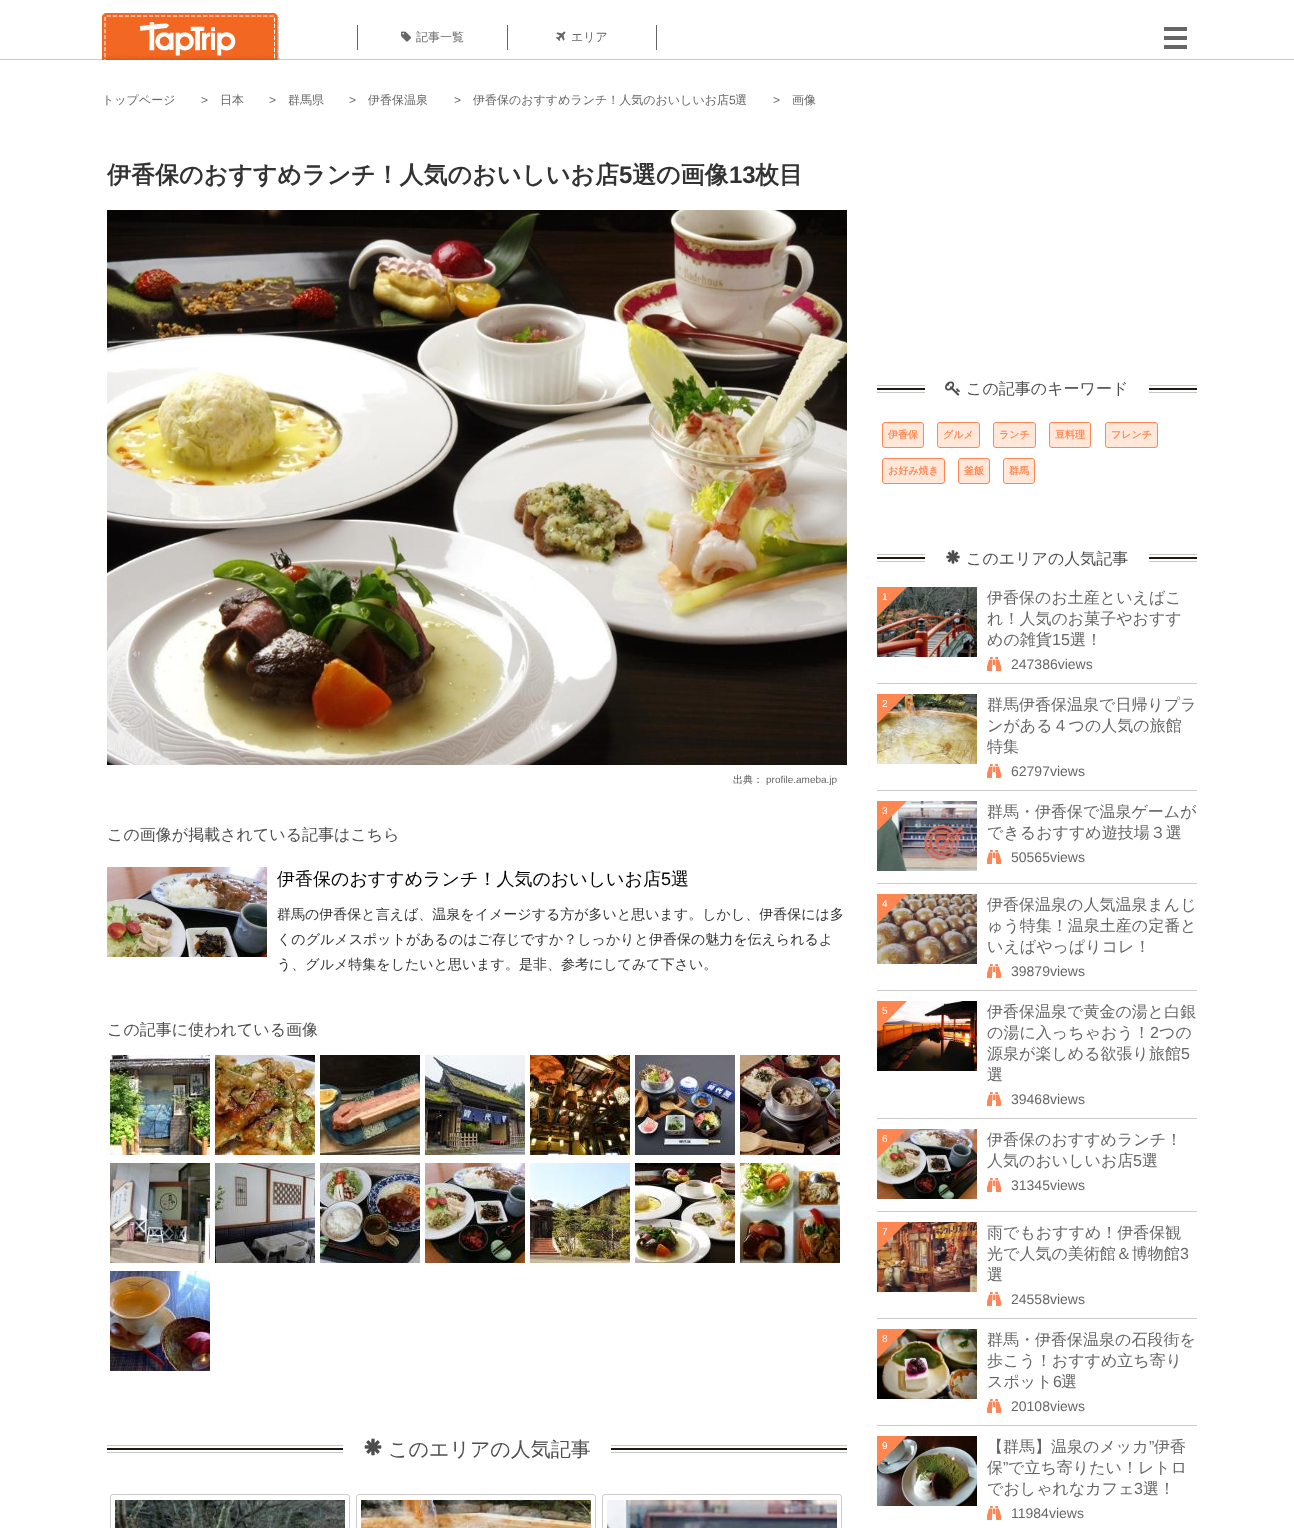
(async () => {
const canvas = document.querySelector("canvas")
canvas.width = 1294
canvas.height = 1528
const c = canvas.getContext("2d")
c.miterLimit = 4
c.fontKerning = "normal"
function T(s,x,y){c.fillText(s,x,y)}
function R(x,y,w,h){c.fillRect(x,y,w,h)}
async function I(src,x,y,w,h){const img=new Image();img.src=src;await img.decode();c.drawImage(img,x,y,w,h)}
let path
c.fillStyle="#fff"
R(0,0,1294,1528)
c.fillStyle="#ccc"
R(0,59,1294,1)
await I("1.png",102,12,179,48)
c.fillStyle="#666"
R(357,25,1,25)
await I("2.png",401,31,11,11)
c.font="500 12px WenQuanYi Zen Hei"
T("記事一覧",416,41)
R(656,25,1,25)
R(507,25,1,25)
await I("3.png",556,31,10,10)
T("エリア",571,41)
await I("4.png",1164,27,23,22)
T("トップページ",102,104)
c.font="12px Liberation Sans"
T(">",201,104)
c.font="500 12px WenQuanYi Zen Hei"
T("日本",220,104)
c.font="12px Liberation Sans"
T(">",269,104)
c.font="500 12px WenQuanYi Zen Hei"
T("群馬県",288,104)
c.font="12px Liberation Sans"
T(">",349,104)
c.font="500 12px WenQuanYi Zen Hei"
T("伊香保温泉",368,104)
c.font="12px Liberation Sans"
T(">",454,104)
c.font="500 12px WenQuanYi Zen Hei"
T("伊香保のおすすめランチ！人気のおいしいお店",473,104)
c.font="12px Liberation Sans"
T("5",729,104)
c.font="500 12px WenQuanYi Zen Hei"
T("選",735,104)
c.font="12px Liberation Sans"
T(">",773,104)
c.font="500 12px WenQuanYi Zen Hei"
T("画像",792,104)
c.font="bold 24px WenQuanYi Zen Hei"
c.fillStyle="#333"
T("伊香保のおすすめランチ！人気のおいしいお店",107,183)
c.font="bold 24px Liberation Sans"
T("5",619,183)
c.font="bold 24px WenQuanYi Zen Hei"
T("選の画像",632,183)
c.font="bold 24px Liberation Sans"
T("13",729,183)
c.font="bold 24px WenQuanYi Zen Hei"
T("枚目",755,183)
await I("5.png",107,210,740,555)
c.font="500 10px WenQuanYi Zen Hei"
c.fillStyle="#4d4d4d"
T("出典：",733,783)
c.font="10px Liberation Sans"
c.fillStyle="#666"
T("profile.ameba.jp",766,783)
c.font="500 16px WenQuanYi Zen Hei"
c.fillStyle="#4d4d4d"
T("この画像が掲載されている記事はこちら",107,840)
await I("6.png",107,867,160,90)
c.font="500 18px WenQuanYi Zen Hei"
c.fillStyle="#000"
T("伊香保のおすすめランチ！人気のおいしいお店",277,885)
c.font="18px Liberation Sans"
T("5",661,885)
c.font="500 18px WenQuanYi Zen Hei"
T("選",671,885)
c.font="500 14px WenQuanYi Zen Hei"
c.fillStyle="#333"
T("群馬の伊香保と言えば、温泉をイメージする方が多いと思います。しかし、伊香保には多",277,919)
T("くのグルメスポットがあるのはご存じですか？しっかりと伊香保の魅力を伝えられるよ",277,944)
T("う、グルメ特集をしたいと思います。是非、参考にしてみて下さい。",277,969)
c.font="500 16px WenQuanYi Zen Hei"
c.fillStyle="#4d4d4d"
T("この記事に使われている画像",107,1035)
await I("7.png",110,1055,100,100)
await I("8.png",215,1055,100,100)
await I("9.png",320,1055,100,100)
await I("10.png",425,1055,100,100)
await I("11.png",530,1055,100,100)
await I("12.png",635,1055,100,100)
await I("13.png",740,1055,100,100)
await I("14.png",110,1163,100,100)
await I("15.png",215,1163,100,100)
await I("16.png",320,1163,100,100)
await I("17.png",425,1163,100,100)
await I("18.png",530,1163,100,100)
await I("19.png",635,1163,100,100)
await I("20.png",740,1163,100,100)
await I("21.png",110,1271,100,100)
await I("22.png",107,1445,740,8)
c.fillStyle="#fff"
R(343,1445,268,8)
await I("23.png",364,1438,18,18)
c.font="500 20px WenQuanYi Zen Hei"
c.fillStyle="#4d4d4d"
T("このエリアの人気記事",388,1456)
c.beginPath()
c.roundRect(110.5,1494.5,239,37,2.5)
c.strokeStyle="#ccc"
c.stroke()
await I("24.png",115,1500,230,28)
c.beginPath()
c.roundRect(356.5,1494.5,239,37,2.5)
c.stroke()
await I("25.png",361,1500,230,28)
c.beginPath()
c.roundRect(602.5,1494.5,239,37,2.5)
c.stroke()
await I("26.png",607,1500,230,28)
await I("27.png",877,385,320,8)
c.fillStyle="#fff"
R(925,385,224,8)
await I("28.png",945,381,15,15)
c.font="500 16px WenQuanYi Zen Hei"
c.fillStyle="#4d4d4d"
T("この記事のキーワード",966,394)
c.fillStyle="#ffe8da"
c.beginPath()
c.roundRect(882.5,422.5,41,25,2.5)
c.fill()
c.strokeStyle="#fe8651"
c.stroke()
c.font="bold 10px WenQuanYi Zen Hei"
c.fillStyle="#fe8651"
T("伊香保",888,438)
c.fillStyle="#ffe8da"
c.beginPath()
c.roundRect(937.5,422.5,42,25,2.5)
c.fill()
c.stroke()
c.fillStyle="#fe8651"
T("グルメ",943,438)
c.fillStyle="#ffe8da"
c.beginPath()
c.roundRect(993.5,422.5,42,25,2.5)
c.fill()
c.stroke()
c.fillStyle="#fe8651"
T("ランチ",999,438)
c.fillStyle="#ffe8da"
c.beginPath()
c.roundRect(1049.5,422.5,41,25,2.5)
c.fill()
c.stroke()
c.fillStyle="#fe8651"
T("豆料理",1055,438)
c.fillStyle="#ffe8da"
c.beginPath()
c.roundRect(1105.5,422.5,52,25,2.5)
c.fill()
c.stroke()
c.fillStyle="#fe8651"
T("フレンチ",1111,438)
c.fillStyle="#ffe8da"
c.beginPath()
c.roundRect(882.5,458.5,62,25,2.5)
c.fill()
c.stroke()
c.fillStyle="#fe8651"
T("お好み焼き",888,474)
c.fillStyle="#ffe8da"
c.beginPath()
c.roundRect(958.5,458.5,31,25,2.5)
c.fill()
c.stroke()
c.fillStyle="#fe8651"
T("釜飯",964,474)
c.fillStyle="#ffe8da"
c.beginPath()
c.roundRect(1003.5,458.5,31,25,2.5)
c.fill()
c.stroke()
c.fillStyle="#fe8651"
T("群馬",1009,474)
await I("27.png",877,554,320,8)
c.fillStyle="#fff"
R(925,554,224,8)
await I("29.png",946,550,14,14)
c.font="500 16px WenQuanYi Zen Hei"
c.fillStyle="#4d4d4d"
T("このエリアの人気記事",966,564)
c.fillStyle="#ccc"
R(877,683,320,1)
await I("30.png",877,587,100,70)
c.fillStyle="#fe8651"
path = new Path2D("M877 617v-30h30z")
c.fill(path)
c.font="10px Liberation Sans"
c.fillStyle="#fff"
T("1",882,600)
c.font="500 16px WenQuanYi Zen Hei"
c.fillStyle="#666"
T("伊香保のお土産といえばこ",987,603)
T("れ！人気のお菓子やおすす",987,624)
T("めの雑貨",987,645)
c.font="16px Liberation Sans"
T("15",1052,645)
c.font="500 16px WenQuanYi Zen Hei"
T("選！",1070,645)
await I("31.png",987,657,14,14)
c.font="14px Liberation Sans"
T("247386views",1011,669)
c.fillStyle="#ccc"
R(877,790,320,1)
await I("32.png",877,694,100,70)
c.fillStyle="#fe8651"
path = new Path2D("M877 724v-30h30z")
c.fill(path)
c.font="10px Liberation Sans"
c.fillStyle="#fff"
T("2",882,707)
c.font="500 16px WenQuanYi Zen Hei"
c.fillStyle="#666"
T("群馬伊香保温泉で日帰りプラ",987,710)
T("ンがある４つの人気の旅館",987,731)
T("特集",987,752)
await I("31.png",987,764,14,14)
c.font="14px Liberation Sans"
T("62797views",1011,776)
c.fillStyle="#ccc"
R(877,883,320,1)
await I("33.png",877,801,100,70)
c.fillStyle="#fe8651"
path = new Path2D("M877 831v-30h30z")
c.fill(path)
c.font="10px Liberation Sans"
c.fillStyle="#fff"
T("3",882,814)
c.font="500 16px WenQuanYi Zen Hei"
c.fillStyle="#666"
T("群馬・伊香保で温泉ゲームが",987,817)
T("できるおすすめ遊技場３選",987,838)
await I("31.png",987,850,14,14)
c.font="14px Liberation Sans"
T("50565views",1011,862)
c.fillStyle="#ccc"
R(877,990,320,1)
await I("34.png",877,894,100,70)
c.fillStyle="#fe8651"
path = new Path2D("M877 924v-30h30z")
c.fill(path)
c.font="10px Liberation Sans"
c.fillStyle="#fff"
T("4",882,907)
c.font="500 16px WenQuanYi Zen Hei"
c.fillStyle="#666"
T("伊香保温泉の人気温泉まんじ",987,910)
T("ゅう特集！温泉土産の定番と",987,931)
T("いえばやっぱりコレ！",987,952)
await I("31.png",987,964,14,14)
c.font="14px Liberation Sans"
T("39879views",1011,976)
c.fillStyle="#ccc"
R(877,1118,320,1)
await I("35.png",877,1001,100,70)
c.fillStyle="#fe8651"
path = new Path2D("M877 1031v-30h30z")
c.fill(path)
c.font="10px Liberation Sans"
c.fillStyle="#fff"
T("5",882,1014)
c.font="500 16px WenQuanYi Zen Hei"
c.fillStyle="#666"
T("伊香保温泉で黄金の湯と白銀",987,1017)
T("の湯に入っちゃおう！",987,1038)
c.font="16px Liberation Sans"
T("2",1150,1038)
c.font="500 16px WenQuanYi Zen Hei"
T("つの",1159,1038)
T("源泉が楽しめる欲張り旅館",987,1059)
c.font="16px Liberation Sans"
T("5",1181,1059)
c.font="500 16px WenQuanYi Zen Hei"
T("選",987,1080)
await I("31.png",987,1092,14,14)
c.font="14px Liberation Sans"
T("39468views",1011,1104)
c.fillStyle="#ccc"
R(877,1211,320,1)
await I("36.png",877,1129,100,70)
c.fillStyle="#fe8651"
path = new Path2D("M877 1159v-30h30z")
c.fill(path)
c.font="10px Liberation Sans"
c.fillStyle="#fff"
T("6",882,1142)
c.font="500 16px WenQuanYi Zen Hei"
c.fillStyle="#666"
T("伊香保のおすすめランチ！",987,1145)
T("人気のおいしいお店",987,1166)
c.font="16px Liberation Sans"
T("5",1133,1166)
c.font="500 16px WenQuanYi Zen Hei"
T("選",1142,1166)
await I("31.png",987,1178,14,14)
c.font="14px Liberation Sans"
T("31345views",1011,1190)
c.fillStyle="#ccc"
R(877,1318,320,1)
await I("37.png",877,1222,100,70)
c.fillStyle="#fe8651"
path = new Path2D("M877 1252v-30h30z")
c.fill(path)
c.font="10px Liberation Sans"
c.fillStyle="#fff"
T("7",882,1235)
c.font="500 16px WenQuanYi Zen Hei"
c.fillStyle="#666"
T("雨でもおすすめ！伊香保観",987,1238)
T("光で人気の美術館＆博物館",987,1259)
c.font="16px Liberation Sans"
T("3",1180,1259)
c.font="500 16px WenQuanYi Zen Hei"
T("選",987,1280)
await I("31.png",987,1292,14,14)
c.font="14px Liberation Sans"
T("24558views",1011,1304)
c.fillStyle="#ccc"
R(877,1425,320,1)
await I("38.png",877,1329,100,70)
c.fillStyle="#fe8651"
path = new Path2D("M877 1359v-30h30z")
c.fill(path)
c.font="10px Liberation Sans"
c.fillStyle="#fff"
T("8",882,1342)
c.font="500 16px WenQuanYi Zen Hei"
c.fillStyle="#666"
T("群馬・伊香保温泉の石段街を",987,1345)
T("歩こう！おすすめ立ち寄り",987,1366)
T("スポット",987,1387)
c.font="16px Liberation Sans"
T("6",1053,1387)
c.font="500 16px WenQuanYi Zen Hei"
T("選",1061,1387)
await I("31.png",987,1399,14,14)
c.font="14px Liberation Sans"
T("20108views",1011,1411)
await I("39.png",877,1436,100,70)
c.fillStyle="#fe8651"
path = new Path2D("M877 1466v-30h30z")
c.fill(path)
c.font="10px Liberation Sans"
c.fillStyle="#fff"
T("9",882,1449)
c.font="500 16px WenQuanYi Zen Hei"
c.fillStyle="#666"
T("【群馬】温泉のメッカ",987,1452)
c.font="16px Liberation Sans"
T("”",1149,1452)
c.font="500 16px WenQuanYi Zen Hei"
T("伊香",1154,1452)
T("保",987,1473)
c.font="16px Liberation Sans"
T("”",1003,1473)
c.font="500 16px WenQuanYi Zen Hei"
T("で立ち寄りたい！レトロ",1008,1473)
T("でおしゃれなカフェ",987,1494)
c.font="16px Liberation Sans"
T("3",1134,1494)
c.font="500 16px WenQuanYi Zen Hei"
T("選！",1143,1494)
await I("31.png",987,1506,14,14)
c.font="14px Liberation Sans"
T("11984views",1011,1518)
})()
